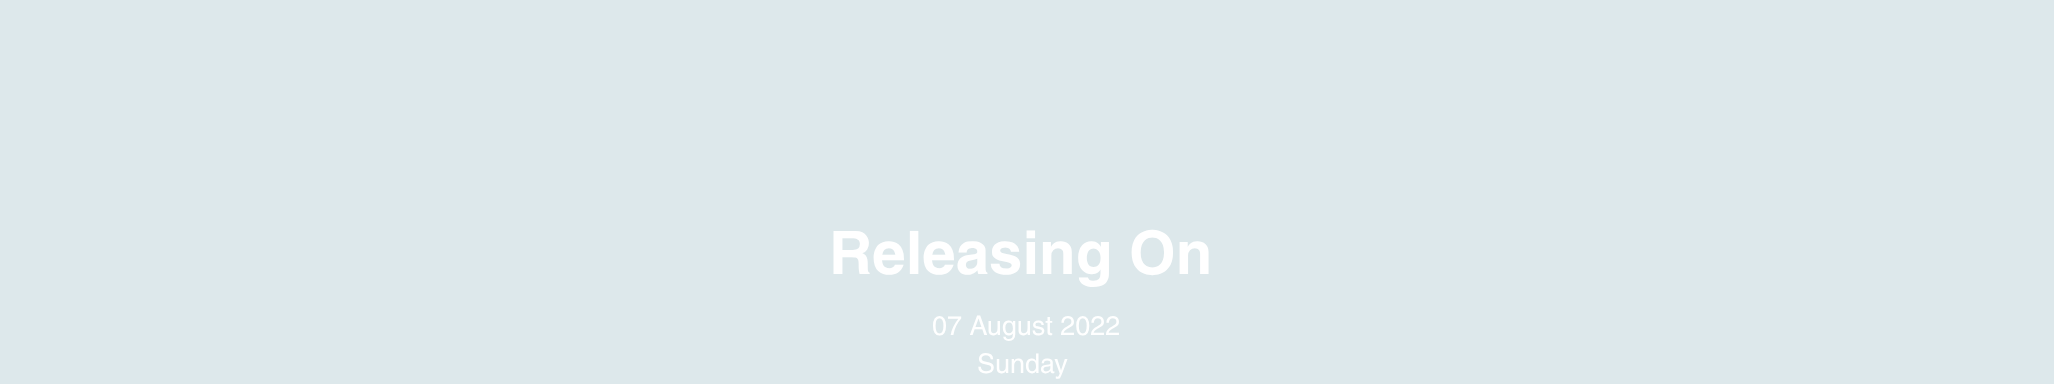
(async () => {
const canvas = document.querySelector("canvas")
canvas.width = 2054
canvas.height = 384
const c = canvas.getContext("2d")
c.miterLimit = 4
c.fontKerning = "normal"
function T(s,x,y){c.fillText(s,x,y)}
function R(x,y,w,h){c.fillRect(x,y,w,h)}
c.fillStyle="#dde8eb"
R(0,0,2054,384)
c.font="bold 60px helvetica"
c.fillStyle="#fff"
T("Releasing On",829,274)
c.font="27px helvetica"
T("07 August 2022",932,335)
T("Sunday",977,373)
})()
